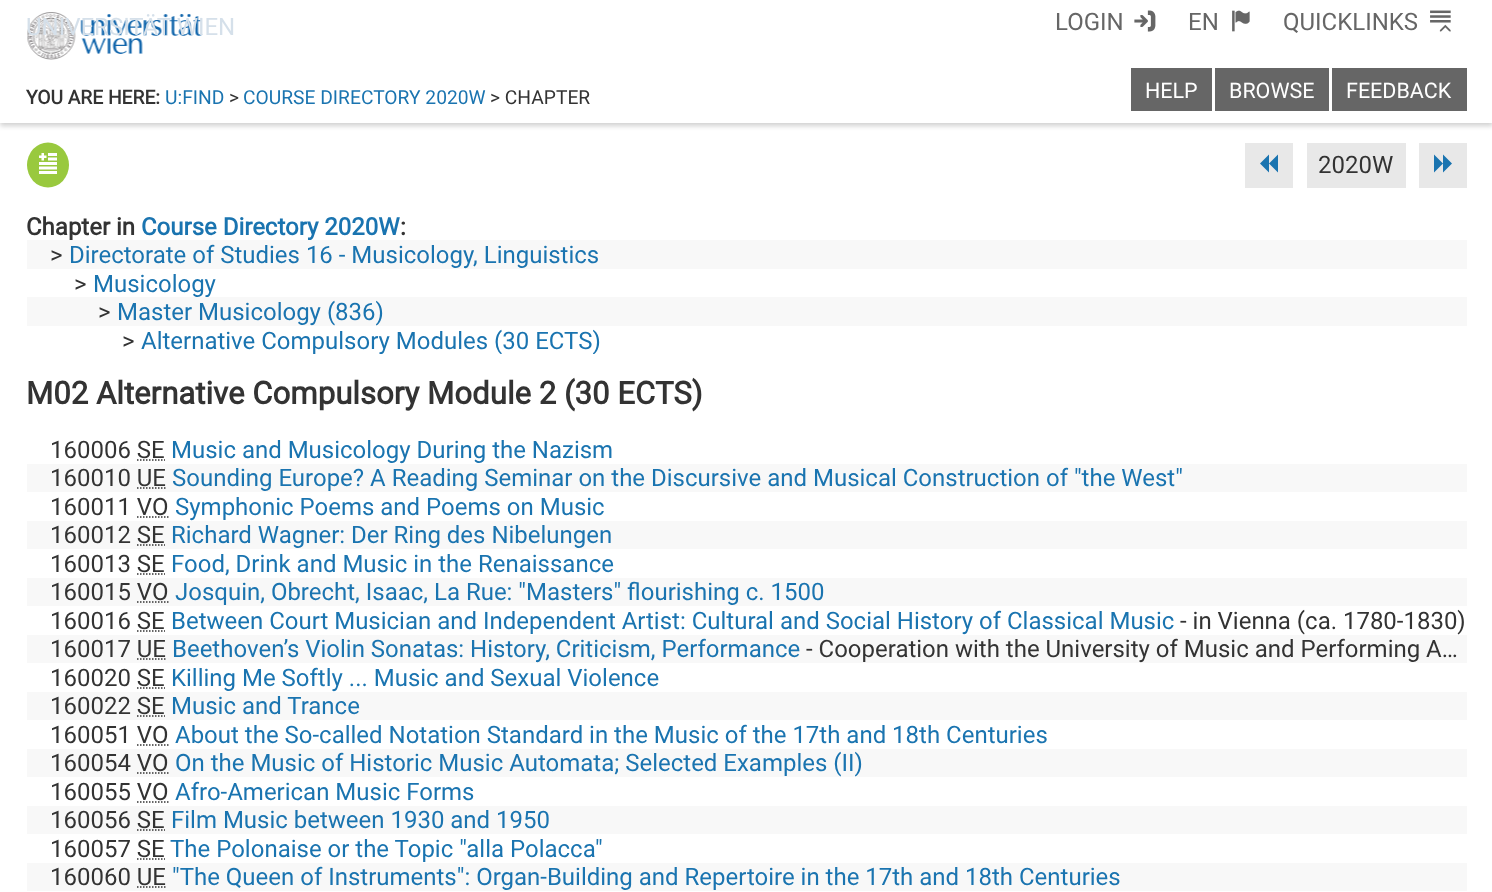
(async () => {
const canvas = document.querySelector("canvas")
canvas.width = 1492
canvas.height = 892
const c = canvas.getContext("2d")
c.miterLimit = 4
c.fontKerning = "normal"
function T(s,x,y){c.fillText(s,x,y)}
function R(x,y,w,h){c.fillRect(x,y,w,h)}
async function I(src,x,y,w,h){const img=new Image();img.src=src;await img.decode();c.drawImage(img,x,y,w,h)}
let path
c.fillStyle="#fff"
R(0,0,1492,892)
c.fillStyle="#0000002e"
c.filter="blur(2.5px)"
c.beginPath()
c.rect(0,3,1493,123)
c.fill()
c.filter="none"
c.fillStyle="#fff"
R(0,0,1492,123)
await I("1.png",27,12,176,48)
c.font="24px Roboto"
c.fillStyle="#d5e0ea"
T("UNIVERSITÄT WIEN",26,35)
c.fillStyle="#666"
T("LOGIN",1055,30)
await I("2.png",1134,10,22,22)
T("EN",1188,30)
await I("3.png",1232,10,18,22)
T("QUICKLINKS",1283,30)
await I("4.png",1430,10,21,22)
R(1131,68,81,43)
c.font="21.5px Roboto"
c.fillStyle="#fff"
T("HELP",1145,98)
c.fillStyle="#666"
R(1215,68,114,43)
c.fillStyle="#fff"
T("BROWSE",1229,98)
c.fillStyle="#666"
R(1332,68,135,43)
c.fillStyle="#fff"
T("FEEDBACK",1346,98)
c.font="bold 19.25px Roboto"
c.fillStyle="#333"
T("YOU ARE HERE:",26,104)
c.font="19.25px Roboto"
c.fillStyle="#1a74b0"
T("U:FIND",165,104)
c.fillStyle="#333"
T(">",229,104)
c.fillStyle="#1a74b0"
T("COURSE DIRECTORY 2020W",243,104)
c.fillStyle="#333"
T("> CHAPTER",490,104)
c.fillStyle="#99c93e"
c.beginPath()
c.ellipse(48,165,21,22.5,0,0,7)
c.fill()
await I("5.png",39,153,18,21)
c.fillStyle="#e8e8e8"
R(1245,143,48,45)
c.fillStyle="#1a74b0"
path = new Path2D("M1269 154.5v18l-9-9zm9 0v18l-9-9z")
c.fill(path)
c.fillStyle="#e8e8e8"
R(1307,143,99,45)
c.font="24px Roboto"
c.fillStyle="#333"
T("2020W",1318,173)
c.fillStyle="#e8e8e8"
R(1419,143,48,45)
c.fillStyle="#1a74b0"
path = new Path2D("M1434 154.5l9 9l-9 9zm9 0l9 9l-9 9z")
c.fill(path)
c.font="bold 24px Roboto"
c.fillStyle="#333"
T("Chapter in",26,235)
c.fillStyle="#1a74b0"
T("Course Directory 2020W",141,235)
c.fillStyle="#333"
T(":",400,235)
c.fillStyle="#f8f8f8"
R(27,240,1440,29)
c.font="24px Roboto"
c.fillStyle="#333"
T(">",50,263)
c.fillStyle="#1a74b0"
T("Directorate of Studies 16 - Musicology, Linguistics",69,263)
c.fillStyle="#333"
T(">",74,292)
c.fillStyle="#1a74b0"
T("Musicology",93,292)
c.fillStyle="#f8f8f8"
R(27,297,1440,29)
c.fillStyle="#333"
T(">",98,320)
c.fillStyle="#1a74b0"
T("Master Musicology (836)",117,320)
c.fillStyle="#333"
T(">",122,349)
c.save()
c.beginPath()
c.rect(27,326,1440,28)
c.clip()
c.fillStyle="#1a74b0"
T("Alternative Compulsory Modules (30 ECTS)",141,349)
c.restore()
c.font="bold 31.2px Roboto"
T("M02 Alternative Compulsory Module 2 (30 ECTS)",26,404)
c.font="24px Roboto"
T("160006 SE",50,458)
c.fillStyle="#1a74b0"
T("Music and Musicology During the Nazism",171,458)
path = new Path2D("M137 460h28")
c.strokeStyle="#333"
c.lineWidth=1.5
c.setLineDash([1.5,1.5])
c.stroke(path)
c.fillStyle="#f8f8f8"
R(27,464,1440,28)
c.fillStyle="#333"
T("160010 UE",50,486)
c.fillStyle="#1a74b0"
T("Sounding Europe? A Reading Seminar on the Discursive and Musical Construction of \"the West\"",172,486)
path = new Path2D("M137 488h29.5")
c.stroke(path)
c.fillStyle="#333"
T("160011 VO",50,515)
c.fillStyle="#1a74b0"
T("Symphonic Poems and Poems on Music",175,515)
path = new Path2D("M137 517h31.5")
c.stroke(path)
c.fillStyle="#f8f8f8"
R(27,521,1440,28)
c.fillStyle="#333"
T("160012 SE",50,543)
c.fillStyle="#1a74b0"
T("Richard Wagner: Der Ring des Nibelungen",171,543)
path = new Path2D("M137 545h28")
c.stroke(path)
c.fillStyle="#333"
T("160013 SE",50,572)
c.fillStyle="#1a74b0"
T("Food, Drink and Music in the Renaissance",171,572)
path = new Path2D("M137 574h28")
c.stroke(path)
c.fillStyle="#f8f8f8"
R(27,578,1440,28)
c.fillStyle="#333"
T("160015 VO",50,600)
c.fillStyle="#1a74b0"
T("Josquin, Obrecht, Isaac, La Rue: \"Masters\" flourishing c. 1500",175,600)
path = new Path2D("M137 602h31.5")
c.stroke(path)
c.fillStyle="#333"
T("160016 SE",50,629)
c.fillStyle="#1a74b0"
T("Between Court Musician and Independent Artist: Cultural and Social History of Classical Music",171,629)
c.fillStyle="#333"
T("- in Vienna (ca. 1780-1830)",1180,629)
path = new Path2D("M137 631h28")
c.stroke(path)
c.fillStyle="#f8f8f8"
R(27,635,1440,28)
c.fillStyle="#333"
T("160017 UE",50,657)
c.fillStyle="#1a74b0"
T("Beethoven’s Violin Sonatas: History, Criticism, Performance",172,657)
c.fillStyle="#333"
T("- Cooperation with the University of Music and Performing A…",806,657)
path = new Path2D("M137 659h29.5")
c.stroke(path)
T("160020 SE",50,686)
c.fillStyle="#1a74b0"
T("Killing Me Softly ... Music and Sexual Violence",171,686)
path = new Path2D("M137 688h28")
c.stroke(path)
c.fillStyle="#f8f8f8"
R(27,692,1440,28)
c.fillStyle="#333"
T("160022 SE",50,714)
c.fillStyle="#1a74b0"
T("Music and Trance",171,714)
path = new Path2D("M137 716h28")
c.stroke(path)
c.fillStyle="#333"
T("160051 VO",50,743)
c.fillStyle="#1a74b0"
T("About the So-called Notation Standard in the Music of the 17th and 18th Centuries",175,743)
path = new Path2D("M137 745h31.5")
c.stroke(path)
c.fillStyle="#f8f8f8"
R(27,749,1440,28)
c.fillStyle="#333"
T("160054 VO",50,771)
c.fillStyle="#1a74b0"
T("On the Music of Historic Music Automata; Selected Examples (II)",175,771)
path = new Path2D("M137 773h31.5")
c.stroke(path)
c.fillStyle="#333"
T("160055 VO",50,800)
c.fillStyle="#1a74b0"
T("Afro-American Music Forms",175,800)
path = new Path2D("M137 802h31.5")
c.stroke(path)
c.fillStyle="#f8f8f8"
R(27,806,1440,28)
c.fillStyle="#333"
T("160056 SE",50,828)
c.fillStyle="#1a74b0"
T("Film Music between 1930 and 1950",171,828)
path = new Path2D("M137 830h28")
c.stroke(path)
c.fillStyle="#333"
T("160057 SE",50,857)
c.fillStyle="#1a74b0"
T("The Polonaise or the Topic \"alla Polacca\"",170,857)
path = new Path2D("M137 859h28")
c.stroke(path)
c.fillStyle="#f8f8f8"
R(27,863,1440,28)
c.fillStyle="#333"
T("160060 UE",50,885)
c.fillStyle="#1a74b0"
T("\"The Queen of Instruments\": Organ-Building and Repertoire in the 17th and 18th Centuries",172,885)
path = new Path2D("M137 887h29.5")
c.stroke(path)
})()
